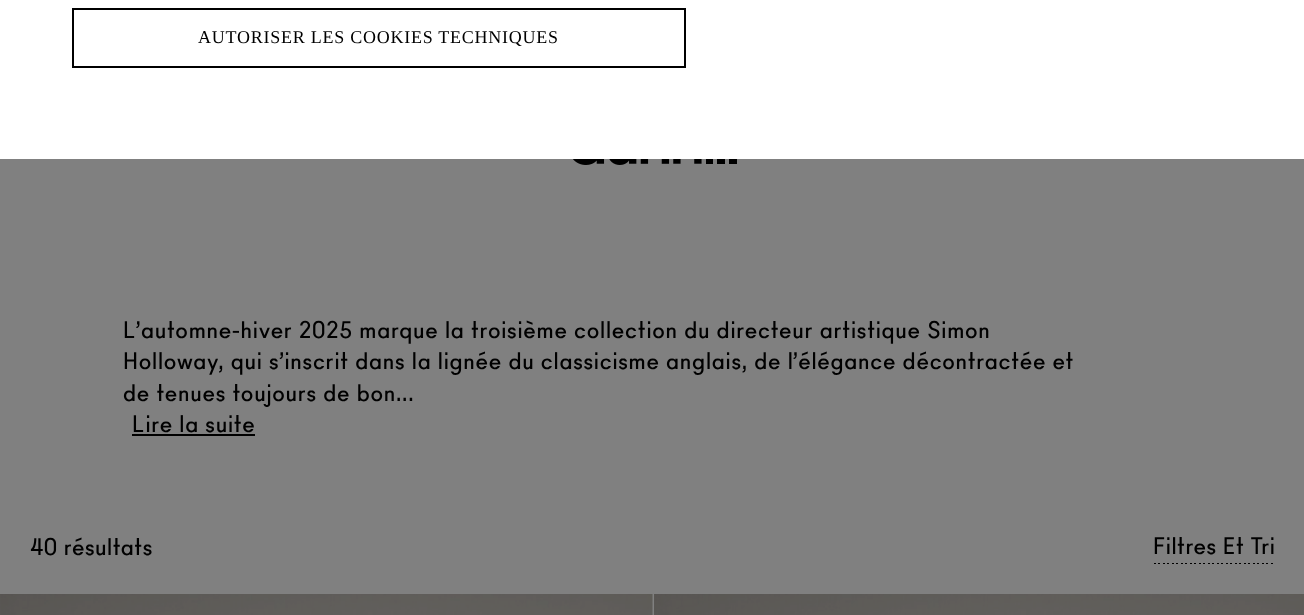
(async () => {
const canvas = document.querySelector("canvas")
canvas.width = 1304
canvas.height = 615
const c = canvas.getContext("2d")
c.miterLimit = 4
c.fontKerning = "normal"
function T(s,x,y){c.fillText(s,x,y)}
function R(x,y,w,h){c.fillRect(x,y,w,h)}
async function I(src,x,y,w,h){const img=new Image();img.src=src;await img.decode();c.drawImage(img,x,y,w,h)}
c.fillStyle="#808080"
R(0,0,1304,615)
c.fillStyle="#fff"
R(0,0,1304,159)
c.strokeStyle="#000"
c.lineWidth=2
c.strokeRect(73,9,612,58)
c.letterSpacing="0.75px"
c.font="18px Liberation Serif"
c.fillStyle="#000"
T("AUTORISER LES COOKIES TECHNIQUES",198,43)
await I("1.png",573,159,164,6)
c.font="22.5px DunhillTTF"
T("L’automne-hiver 2025 marque la troisième collection du directeur artistique Simon",123,338)
T("Holloway, qui s’inscrit dans la lignée du classicisme anglais, de l’élégance décontractée et",123,369)
T("de tenues toujours de bon...",123,401)
T("Lire la suite",132,432)
R(132,434,123,2)
c.letterSpacing="0.5px"
T("40 résultats",30,555)
await I("2.png",1154,563,119,1)
T("Filtres Et Tri",1153,554)
await I("3.png",0,594,653,21)
await I("4.png",654,594,650,21)
})()
